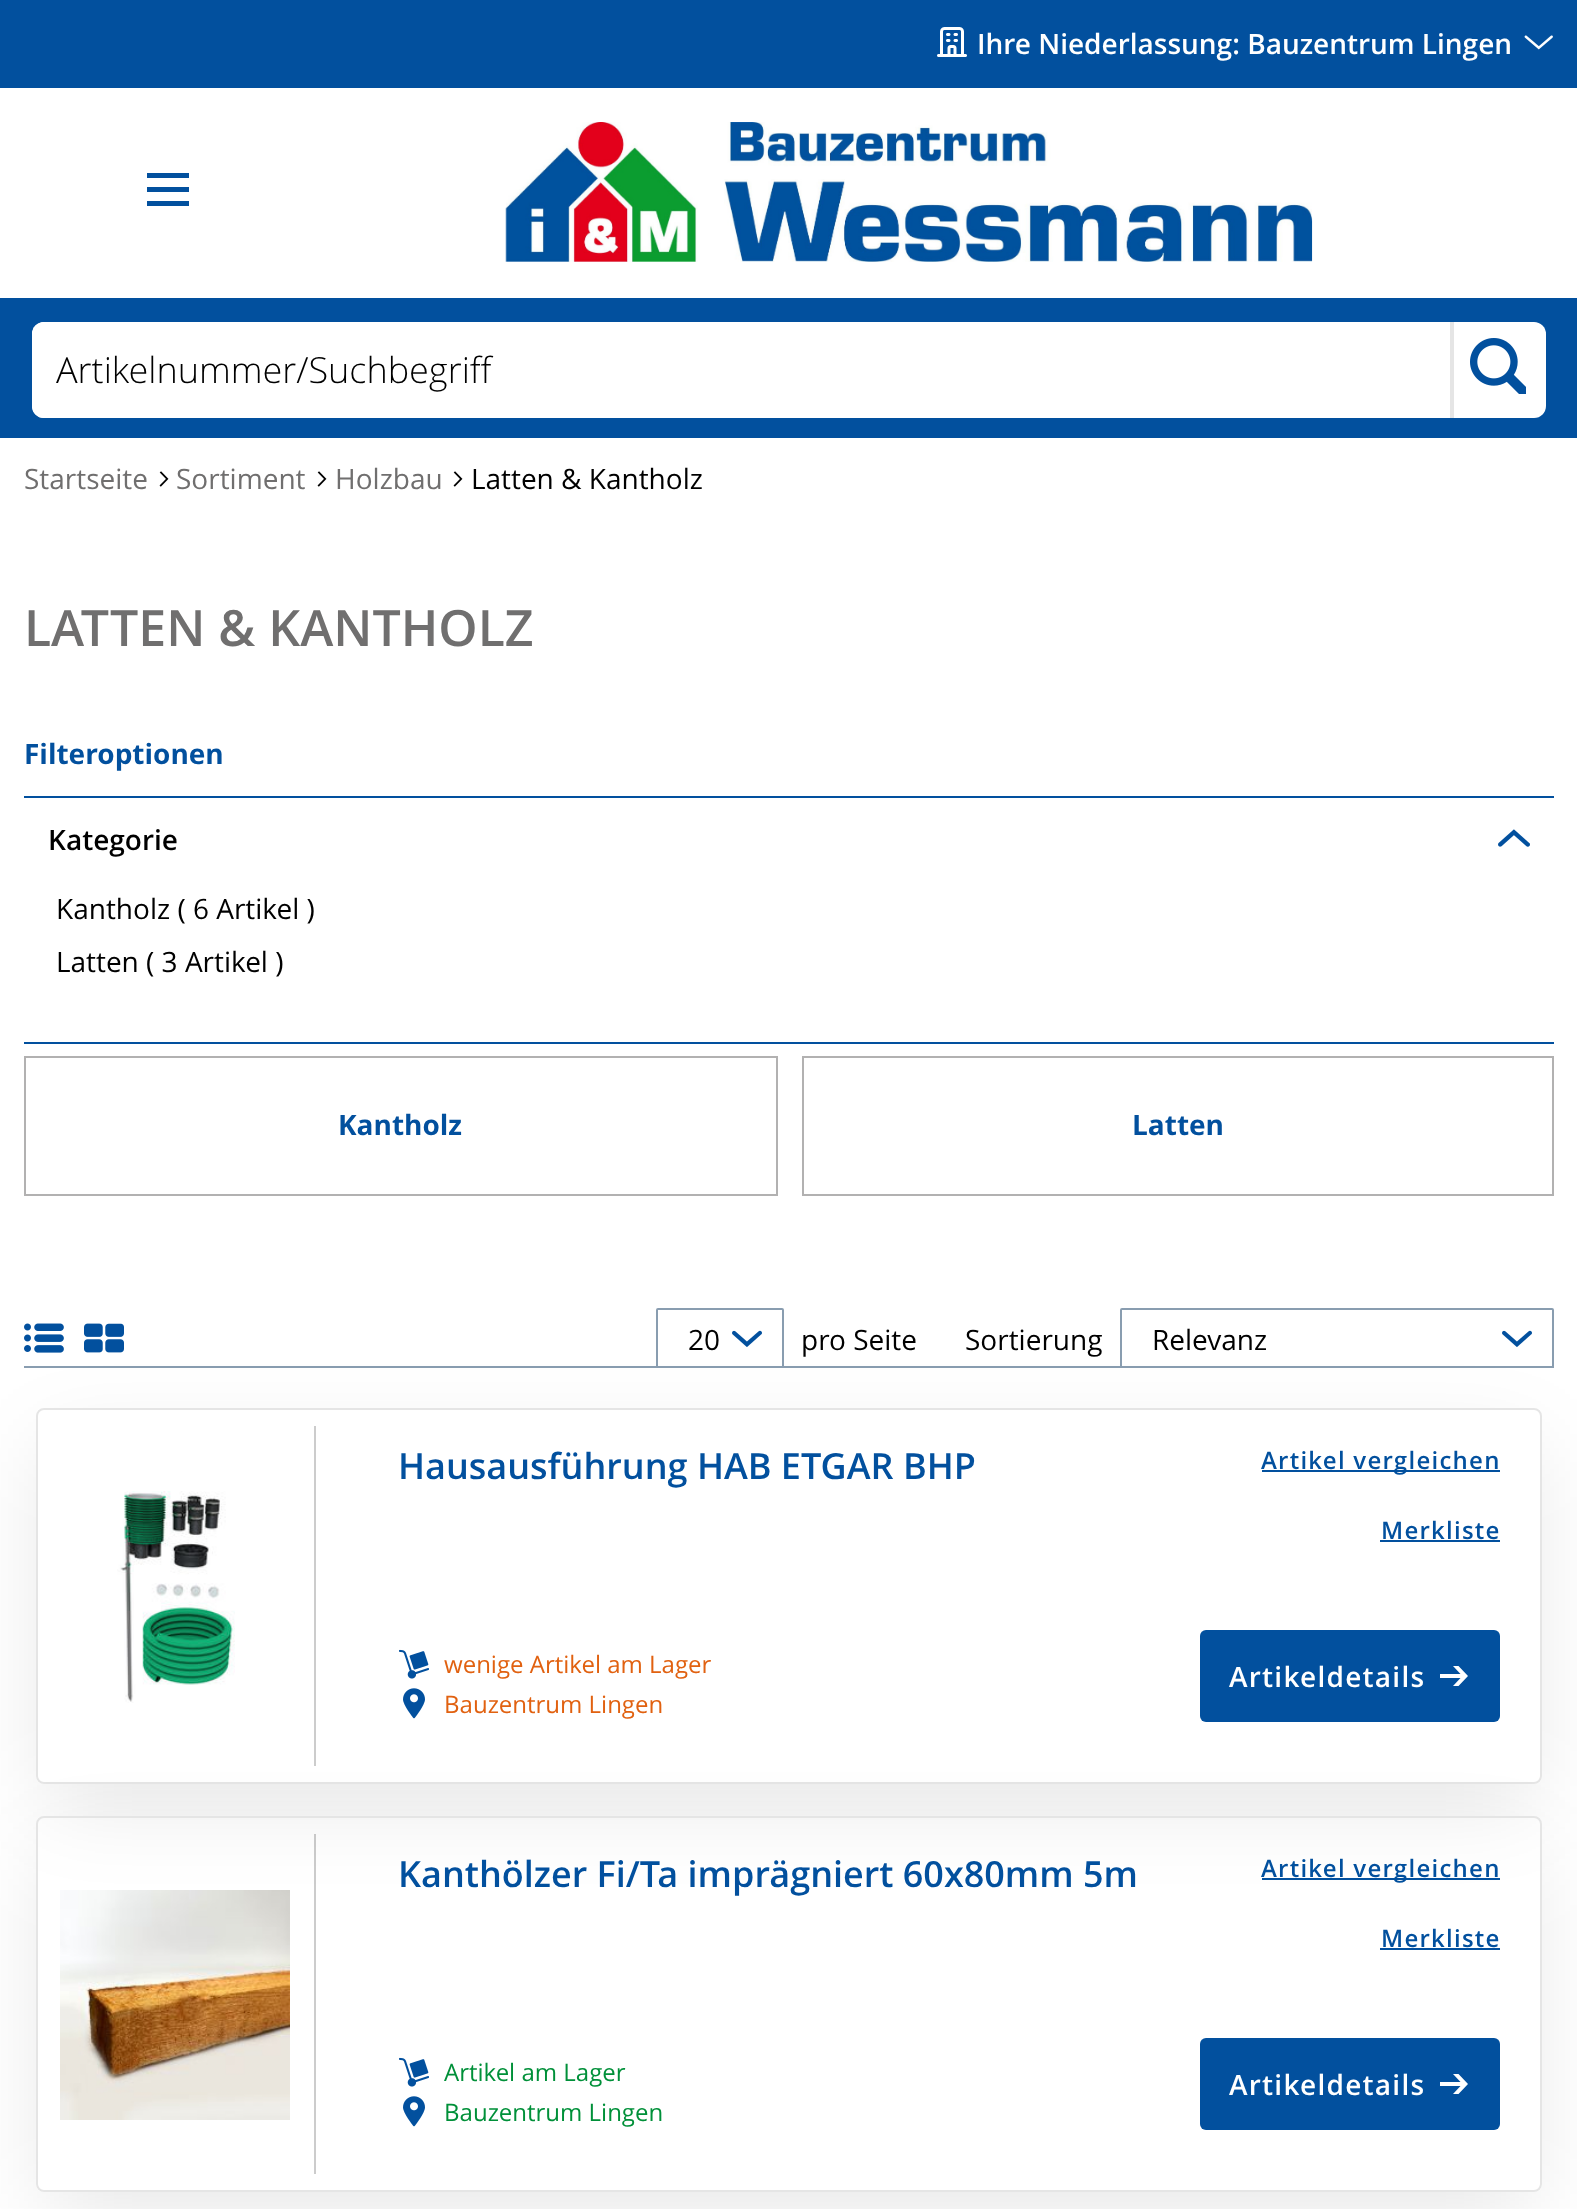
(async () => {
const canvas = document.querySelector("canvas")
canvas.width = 1577
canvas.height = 2209
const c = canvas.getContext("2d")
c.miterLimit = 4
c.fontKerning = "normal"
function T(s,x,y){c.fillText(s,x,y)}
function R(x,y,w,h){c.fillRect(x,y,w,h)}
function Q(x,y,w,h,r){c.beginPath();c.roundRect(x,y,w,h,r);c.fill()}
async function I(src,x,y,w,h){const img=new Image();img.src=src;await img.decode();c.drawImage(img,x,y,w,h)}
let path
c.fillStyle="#fff"
R(0,0,1577,2209)
c.fillStyle="#02509e"
R(0,0,1577,88)
await I("1.png",937,27,30,30)
c.font="600 28px Open Sans"
c.fillStyle="#fff"
T("Ihre Niederlassung: Bauzentrum Lingen",977,54)
await I("2.png",1524,35,29,15)
c.fillStyle="#02509e"
path = new Path2D("M147 173v5h42v-5zm0 19h42v-5h-42zm0 14h42v-5h-42z")
c.fill(path)
await I("3.png",505,122,808,140)
R(0,298,1577,140)
c.fillStyle="#fff"
Q(32,322,1514,96,12)
Q(32,322,1418,96,12)
c.font="300 36px Open Sans"
c.fillStyle="#000"
T("Artikelnummer/Suchbegriff",56,383)
c.fillStyle="#e5e5e5"
R(1450,322,4,96)
await I("4.png",1470,338,56,56)
c.font="28px Open Sans"
c.fillStyle="#706f6f"
T("Startseite",24,489)
await I("5.png",159,471,10,16)
T("Sortiment",176,489)
await I("5.png",317,471,10,16)
T("Holzbau",335,489)
await I("5.png",453,471,10,16)
c.fillStyle="#000"
T("Latten & Kantholz",471,489)
c.font="600 50px Open Sans"
c.fillStyle="#706f6f"
T("LATTEN & KANTHOLZ",24,646)
c.font="bold 28px Open Sans"
c.fillStyle="#02509e"
T("Filteroptionen",24,764)
R(24,796,1530,2)
R(24,1042,1530,2)
c.font="600 28px Open Sans"
c.fillStyle="#000"
T("Kategorie",48,850)
await I("6.png",1498,829,32,18)
c.font="28px Open Sans"
T("Kantholz ( 6 Artikel )",56,919)
T("Latten ( 3 Artikel )",56,972)
c.strokeStyle="#b2b1b1"
c.lineWidth=2
c.strokeRect(25,1057,752,138)
c.font="bold 28px Open Sans"
c.fillStyle="#02509e"
T("Kantholz",338,1135)
c.strokeRect(803,1057,750,138)
T("Latten",1132,1135)
c.fillStyle="#899db0"
R(24,1366,1530,2)
await I("7.png",24,1323,40,30)
await I("8.png",84,1323,40,30)
await I("9.png",732,1330,30,17)
c.beginPath()
c.roundRect(657,1309,126,58,1)
c.strokeStyle="#899db0"
c.stroke()
c.font="28px Open Sans"
c.fillStyle="#000"
T("20",688,1350)
T("pro Seite",801,1350)
T("Sortierung",965,1350)
await I("9.png",1502,1330,30,17)
c.beginPath()
c.roundRect(1121,1309,432,58,1)
c.stroke()
T("Relevanz",1152,1350)
c.save()
path = new Path2D("M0 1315h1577v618h-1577zm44 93h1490c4.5 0 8 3.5 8 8v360c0 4.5-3.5 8-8 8h-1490c-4.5 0-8-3.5-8-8v-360c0-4.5 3.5-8 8-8z")
c.clip(path,"evenodd")
c.fillStyle="#0000001a"
c.filter="blur(44px)"
c.beginPath()
c.rect(48,1448,1482,352)
c.fill()
c.filter="none"
c.restore()
c.beginPath()
c.roundRect(37,1409,1504,374,7)
c.strokeStyle="#e5e5e5"
c.stroke()
await I("10.png",117,1491,118,212)
c.fillStyle="#ccc"
R(314,1426,2,340)
c.font="600 36px Open Sans"
c.fillStyle="#02509e"
T("Hausausführung HAB ETGAR BHP",398,1479)
R(1262,1470,238,2)
c.letterSpacing="1.25px"
c.font="600 24px Open Sans"
T("Artikel vergleichen",1261,1469)
T("Merkliste",1381,1539)
R(1380,1540,120,2)
await I("11.png",399,1649,30,30)
c.letterSpacing="0px"
c.font="24px Open Sans"
c.fillStyle="#e16110"
T("wenige Artikel am Lager",444,1673)
await I("12.png",403,1688,22,31)
T("Bauzentrum Lingen",444,1713)
c.fillStyle="#02509e"
Q(1200,1630,300,92,6)
c.letterSpacing="1.25px"
c.font="600 28px Open Sans"
c.fillStyle="#fff"
T("Artikeldetails",1229,1687)
path = new Path2D("M1440 1674h20.5l-7.5-8h5.5l9.5 10l-9.5 10h-5.5l7.5-8h-20.5z")
c.fill(path)
c.save()
path = new Path2D("M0 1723h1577v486h-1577zm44 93h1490c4.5 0 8 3.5 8 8v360c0 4.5-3.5 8-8 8h-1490c-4.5 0-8-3.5-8-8v-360c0-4.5 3.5-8 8-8z")
c.clip(path,"evenodd")
c.fillStyle="#0000001a"
c.filter="blur(44px)"
c.beginPath()
c.rect(48,1856,1482,352)
c.fill()
c.filter="none"
c.restore()
c.beginPath()
c.roundRect(37,1817,1504,374,7)
c.stroke()
await I("13.png",60,1890,230,230)
c.fillStyle="#00000033"
R(314,1834,2,340)
c.letterSpacing="0px"
c.font="600 36px Open Sans"
c.fillStyle="#02509e"
T("Kanthölzer Fi/Ta imprägniert 60x80mm 5m",398,1887)
R(1262,1878,238,2)
c.letterSpacing="1.25px"
c.font="600 24px Open Sans"
T("Artikel vergleichen",1261,1877)
T("Merkliste",1381,1947)
R(1380,1948,120,2)
await I("11.png",399,2057,30,30)
c.letterSpacing="0px"
c.font="24px Open Sans"
c.fillStyle="#009039"
T("Artikel am Lager",444,2081)
await I("12.png",403,2096,22,31)
T("Bauzentrum Lingen",444,2121)
c.fillStyle="#02509e"
Q(1200,2038,300,92,6)
c.letterSpacing="1.25px"
c.font="600 28px Open Sans"
c.fillStyle="#fff"
T("Artikeldetails",1229,2095)
path = new Path2D("M1440 2082h20.5l-7.5-8h5.5l9.5 10l-9.5 10h-5.5l7.5-8h-20.5z")
c.fill(path)
})()
